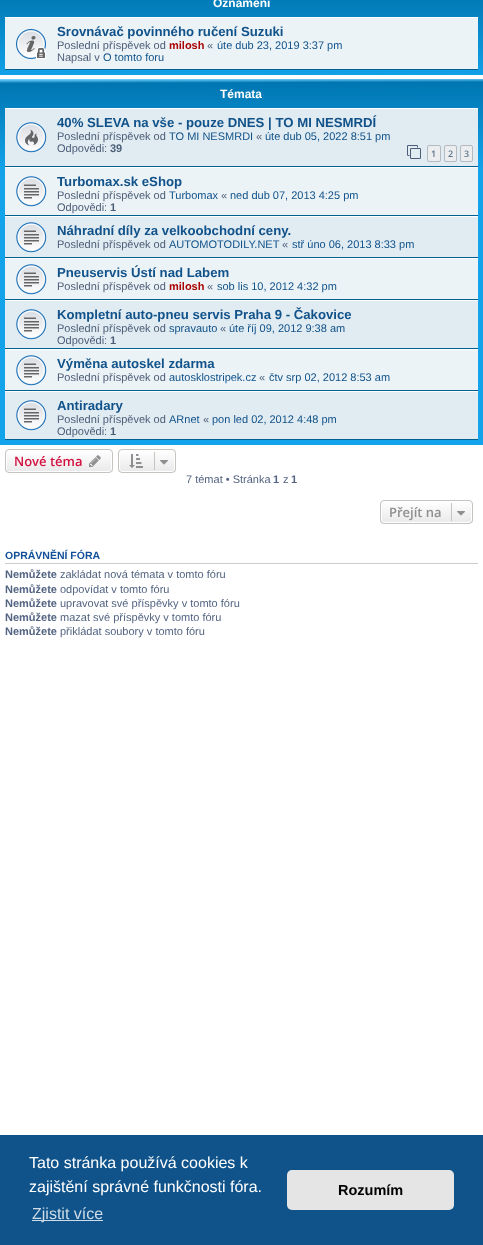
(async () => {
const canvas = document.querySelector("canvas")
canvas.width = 483
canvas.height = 1245
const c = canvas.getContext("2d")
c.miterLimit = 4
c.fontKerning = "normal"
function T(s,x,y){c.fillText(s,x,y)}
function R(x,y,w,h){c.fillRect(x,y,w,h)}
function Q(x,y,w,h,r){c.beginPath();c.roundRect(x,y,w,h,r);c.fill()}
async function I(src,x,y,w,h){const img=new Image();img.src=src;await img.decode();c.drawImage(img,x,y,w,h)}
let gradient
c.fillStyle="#fff"
R(0,0,483,1245)
gradient = c.createLinearGradient(242,-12,242,80)
gradient.addColorStop(0,"#6aceff")
gradient.addColorStop(.02,"#0076b1")
gradient.addColorStop(1,"#12a3eb")
c.fillStyle = gradient
R(0,0,483,75)
c.font="bold 12px Liberation Sans"
c.fillStyle="#fff"
T("Oznámení",213,7)
c.fillStyle="#ecf3f7"
R(5,18,473,51)
c.fillStyle="#fff"
R(5,17,473,1)
c.fillStyle="#00608f"
R(5,69,473,1)
await I("1.png",16,29,30,30)
c.font="bold 13.2px Liberation Sans"
c.fillStyle="#105289"
T("Srovnávač povinného ručení Suzuki",57,36)
c.font="11px Liberation Sans"
c.fillStyle="#4c5d77"
T("Poslední příspěvek od",57,49)
c.font="bold 11px Liberation Sans"
c.fillStyle="#a00"
T("milosh",169,49)
c.font="11px Liberation Sans"
c.fillStyle="#4c5d77"
T("«",207,49)
c.fillStyle="#105289"
T("úte dub 23, 2019 3:37 pm",217,49)
c.fillStyle="#4c5d77"
T("Napsal v",57,61)
c.fillStyle="#105289"
T("O tomto foru",103,61)
gradient = c.createLinearGradient(241,79,242,445)
gradient.addColorStop(0,"#6aceff")
gradient.addColorStop(.01,"#0076b1")
gradient.addColorStop(.25,"#12a3eb")
gradient.addColorStop(1,"#12a3eb")
c.fillStyle = gradient
R(0,79,483,366)
c.font="bold 12px Liberation Sans"
c.fillStyle="#fff"
T("Témata",220,98)
c.fillStyle="#e1ebf2"
R(5,109,473,57)
c.fillStyle="#fff"
R(5,108,473,1)
c.fillStyle="#00608f"
R(5,166,473,1)
await I("2.png",16,122,31,31)
c.font="bold 13.2px Liberation Sans"
c.fillStyle="#105289"
T("40% SLEVA na vše - pouze DNES | TO MI NESMRDÍ",57,127)
c.font="11px Liberation Sans"
c.fillStyle="#4c5d77"
T("Poslední příspěvek od",57,140)
c.fillStyle="#105289"
T("TO MI NESMRDI",169,140)
c.fillStyle="#4c5d77"
T("«",256,140)
c.fillStyle="#105289"
T("úte dub 05, 2022 8:51 pm",265,140)
c.fillStyle="#4c5d77"
T("Odpovědi:",57,152)
c.font="bold 11px Liberation Sans"
T("39",110,152)
await I("3.png",407,145,14,14)
c.fillStyle="#ecedee"
c.beginPath()
c.roundRect(427.5,145.5,13,16,1.5)
c.fill()
c.strokeStyle="#b4bac0"
c.stroke()
c.font="600 9px Open Sans"
c.fillStyle="#5c758c"
T("1",431,157)
c.fillStyle="#ecedee"
c.beginPath()
c.roundRect(444.5,145.5,12,16,1.5)
c.fill()
c.stroke()
c.fillStyle="#5c758c"
T("2",448,157)
c.fillStyle="#ecedee"
c.beginPath()
c.roundRect(460.5,145.5,12,16,1.5)
c.fill()
c.stroke()
c.fillStyle="#5c758c"
T("3",464,157)
c.fillStyle="#ecf3f7"
R(5,168,473,47)
c.fillStyle="#fff"
R(5,167,473,1)
c.fillStyle="#00608f"
R(5,215,473,1)
await I("4.png",16,176,31,31)
c.font="bold 13.2px Liberation Sans"
c.fillStyle="#105289"
T("Turbomax.sk eShop",57,186)
c.font="11px Liberation Sans"
c.fillStyle="#4c5d77"
T("Poslední příspěvek od",57,199)
c.fillStyle="#105289"
T("Turbomax",169,199)
c.fillStyle="#4c5d77"
T("«",221,199)
c.fillStyle="#105289"
T("ned dub 07, 2013 4:25 pm",230,199)
c.fillStyle="#4c5d77"
T("Odpovědi:",57,211)
c.font="bold 11px Liberation Sans"
T("1",110,211)
c.fillStyle="#e1ebf2"
R(5,217,473,40)
c.fillStyle="#fff"
R(5,216,473,1)
c.fillStyle="#00608f"
R(5,257,473,1)
await I("5.png",16,222,31,31)
c.font="bold 13.2px Liberation Sans"
c.fillStyle="#105289"
T("Náhradní díly za velkoobchodní ceny.",57,235)
c.font="11px Liberation Sans"
c.fillStyle="#4c5d77"
T("Poslední příspěvek od",57,248)
c.fillStyle="#105289"
T("AUTOMOTODILY.NET",169,248)
c.fillStyle="#4c5d77"
T("«",282,248)
c.fillStyle="#105289"
T("stř úno 06, 2013 8:33 pm",292,248)
c.fillStyle="#ecf3f7"
R(5,259,473,40)
c.fillStyle="#fff"
R(5,258,473,1)
c.fillStyle="#00608f"
R(5,299,473,1)
await I("4.png",16,264,31,31)
c.font="bold 13.2px Liberation Sans"
c.fillStyle="#105289"
T("Pneuservis Ústí nad Labem",57,277)
c.font="11px Liberation Sans"
c.fillStyle="#4c5d77"
T("Poslední příspěvek od",57,290)
c.font="bold 11px Liberation Sans"
c.fillStyle="#a00"
T("milosh",169,290)
c.font="11px Liberation Sans"
c.fillStyle="#4c5d77"
T("«",207,290)
c.fillStyle="#105289"
T("sob lis 10, 2012 4:32 pm",217,290)
c.fillStyle="#e1ebf2"
R(5,301,473,47)
c.fillStyle="#fff"
R(5,300,473,1)
c.fillStyle="#00608f"
R(5,348,473,1)
await I("5.png",16,309,31,31)
c.font="bold 13.2px Liberation Sans"
c.fillStyle="#105289"
T("Kompletní auto-pneu servis Praha 9 - Čakovice",57,319)
c.font="11px Liberation Sans"
c.fillStyle="#4c5d77"
T("Poslední příspěvek od",57,332)
c.fillStyle="#105289"
T("spravauto",169,332)
c.fillStyle="#4c5d77"
T("«",220,332)
c.fillStyle="#105289"
T("úte říj 09, 2012 9:38 am",229,332)
c.fillStyle="#4c5d77"
T("Odpovědi:",57,344)
c.font="bold 11px Liberation Sans"
T("1",110,344)
c.fillStyle="#ecf3f7"
R(5,350,473,40)
c.fillStyle="#fff"
R(5,349,473,1)
c.fillStyle="#00608f"
R(5,390,473,1)
await I("4.png",16,355,31,31)
c.font="bold 13.2px Liberation Sans"
c.fillStyle="#105289"
T("Výměna autoskel zdarma",57,368)
c.font="11px Liberation Sans"
c.fillStyle="#4c5d77"
T("Poslední příspěvek od",57,381)
c.fillStyle="#105289"
T("autosklostripek.cz",169,381)
c.fillStyle="#4c5d77"
T("«",259,381)
c.fillStyle="#105289"
T("čtv srp 02, 2012 8:53 am",269,381)
c.fillStyle="#e1ebf2"
R(5,392,473,47)
c.fillStyle="#fff"
R(5,391,473,1)
c.fillStyle="#00608f"
R(5,439,473,1)
await I("5.png",16,400,31,31)
c.font="bold 13.2px Liberation Sans"
c.fillStyle="#105289"
T("Antiradary",57,410)
c.font="11px Liberation Sans"
c.fillStyle="#4c5d77"
T("Poslední příspěvek od",57,423)
c.fillStyle="#105289"
T("ARnet",169,423)
c.fillStyle="#4c5d77"
T("«",203,423)
c.fillStyle="#105289"
T("pon led 02, 2012 4:48 pm",212,423)
c.fillStyle="#4c5d77"
T("Odpovědi:",57,435)
c.font="bold 11px Liberation Sans"
T("1",110,435)
c.save()
c.beginPath()
c.roundRect(5,449,108,24,4)
c.clip()
gradient = c.createLinearGradient(59,450,59,472)
gradient.addColorStop(0,"#fff")
gradient.addColorStop(1,"#e9e9e9")
c.fillStyle = gradient
R(5,450,108,22)
c.restore()
c.beginPath()
c.roundRect(6.5,450.5,105,21,2.5)
c.strokeStyle="#fff"
c.stroke()
c.beginPath()
c.roundRect(5.5,449.5,107,23,3.5)
c.strokeStyle="#c7c3bf"
c.stroke()
c.font="600 13px Open Sans"
c.fillStyle="#d31141"
T("Nové téma",14,466)
await I("6.png",89,455,12,12)
c.save()
c.beginPath()
c.roundRect(118,449,58,24,4)
c.clip()
gradient = c.createLinearGradient(147,450,147,472)
gradient.addColorStop(0,"#fff")
gradient.addColorStop(1,"#e9e9e9")
c.fillStyle = gradient
R(118,450,58,22)
c.restore()
c.beginPath()
c.roundRect(119.5,450.5,55,21,2.5)
c.strokeStyle="#fff"
c.stroke()
c.beginPath()
c.roundRect(118.5,449.5,57,23,3.5)
c.strokeStyle="#c7c3bf"
c.stroke()
await I("7.png",129,454,14,14)
c.fillStyle="#c7c3bf"
R(154,452,1,18)
await I("8.png",160,460,8,5)
c.font="11px Liberation Sans"
c.fillStyle="#536482"
T("7 témat • Stránka",186,483)
c.font="bold 11px Liberation Sans"
T("1",273,483)
c.font="11px Liberation Sans"
T("z",283,483)
c.font="bold 11px Liberation Sans"
T("1",291,483)
c.save()
c.beginPath()
c.roundRect(380,500,93,24,4)
c.clip()
gradient = c.createLinearGradient(427,501,427,523)
gradient.addColorStop(0,"#fff")
gradient.addColorStop(1,"#e9e9e9")
c.fillStyle = gradient
R(380,501,93,22)
c.restore()
c.beginPath()
c.roundRect(381.5,501.5,90,21,2.5)
c.strokeStyle="#fff"
c.stroke()
c.beginPath()
c.roundRect(380.5,500.5,92,23,3.5)
c.strokeStyle="#c7c3bf"
c.stroke()
c.font="600 13px Open Sans"
c.fillStyle="#8f8f8f"
T("Přejít na",389,517)
c.fillStyle="#c7c3bf"
R(451,503,1,18)
await I("8.png",457,511,8,5)
c.fillStyle="#ccc"
R(5,563,473,1)
c.font="bold 10.5px Liberation Sans"
c.fillStyle="#115098"
T("OPRÁVNĚNÍ FÓRA",5,559)
c.font="bold 11px Liberation Sans"
c.fillStyle="#536482"
T("Nemůžete",5,578)
c.font="11px Liberation Sans"
T("zakládat nová témata v tomto fóru",60,578)
c.font="bold 11px Liberation Sans"
T("Nemůžete",5,593)
c.font="11px Liberation Sans"
T("odpovídat v tomto fóru",60,593)
c.font="bold 11px Liberation Sans"
T("Nemůžete",5,607)
c.font="11px Liberation Sans"
T("upravovat své příspěvky v tomto fóru",60,607)
c.font="bold 11px Liberation Sans"
T("Nemůžete",5,621)
c.font="11px Liberation Sans"
T("mazat své příspěvky v tomto fóru",60,621)
c.font="bold 11px Liberation Sans"
T("Nemůžete",5,635)
c.font="11px Liberation Sans"
T("přikládat soubory v tomto fóru",60,635)
c.fillStyle="#0f538a"
R(0,1135,483,110)
c.font="16px Liberation Sans"
c.fillStyle="#fff"
T("Tato stránka používá cookies k",29,1168)
T("zajištění správné funkčnosti fóra.",29,1192)
c.fillStyle="#cfdde8"
R(32,1220,71,1)
T("Zjistit více",32,1219)
c.fillStyle="#e5e5e5"
Q(287,1170,167,40,5)
c.font="bold 14.5px Liberation Sans"
c.fillStyle="#000"
T("Rozumím",338,1195)
})()
